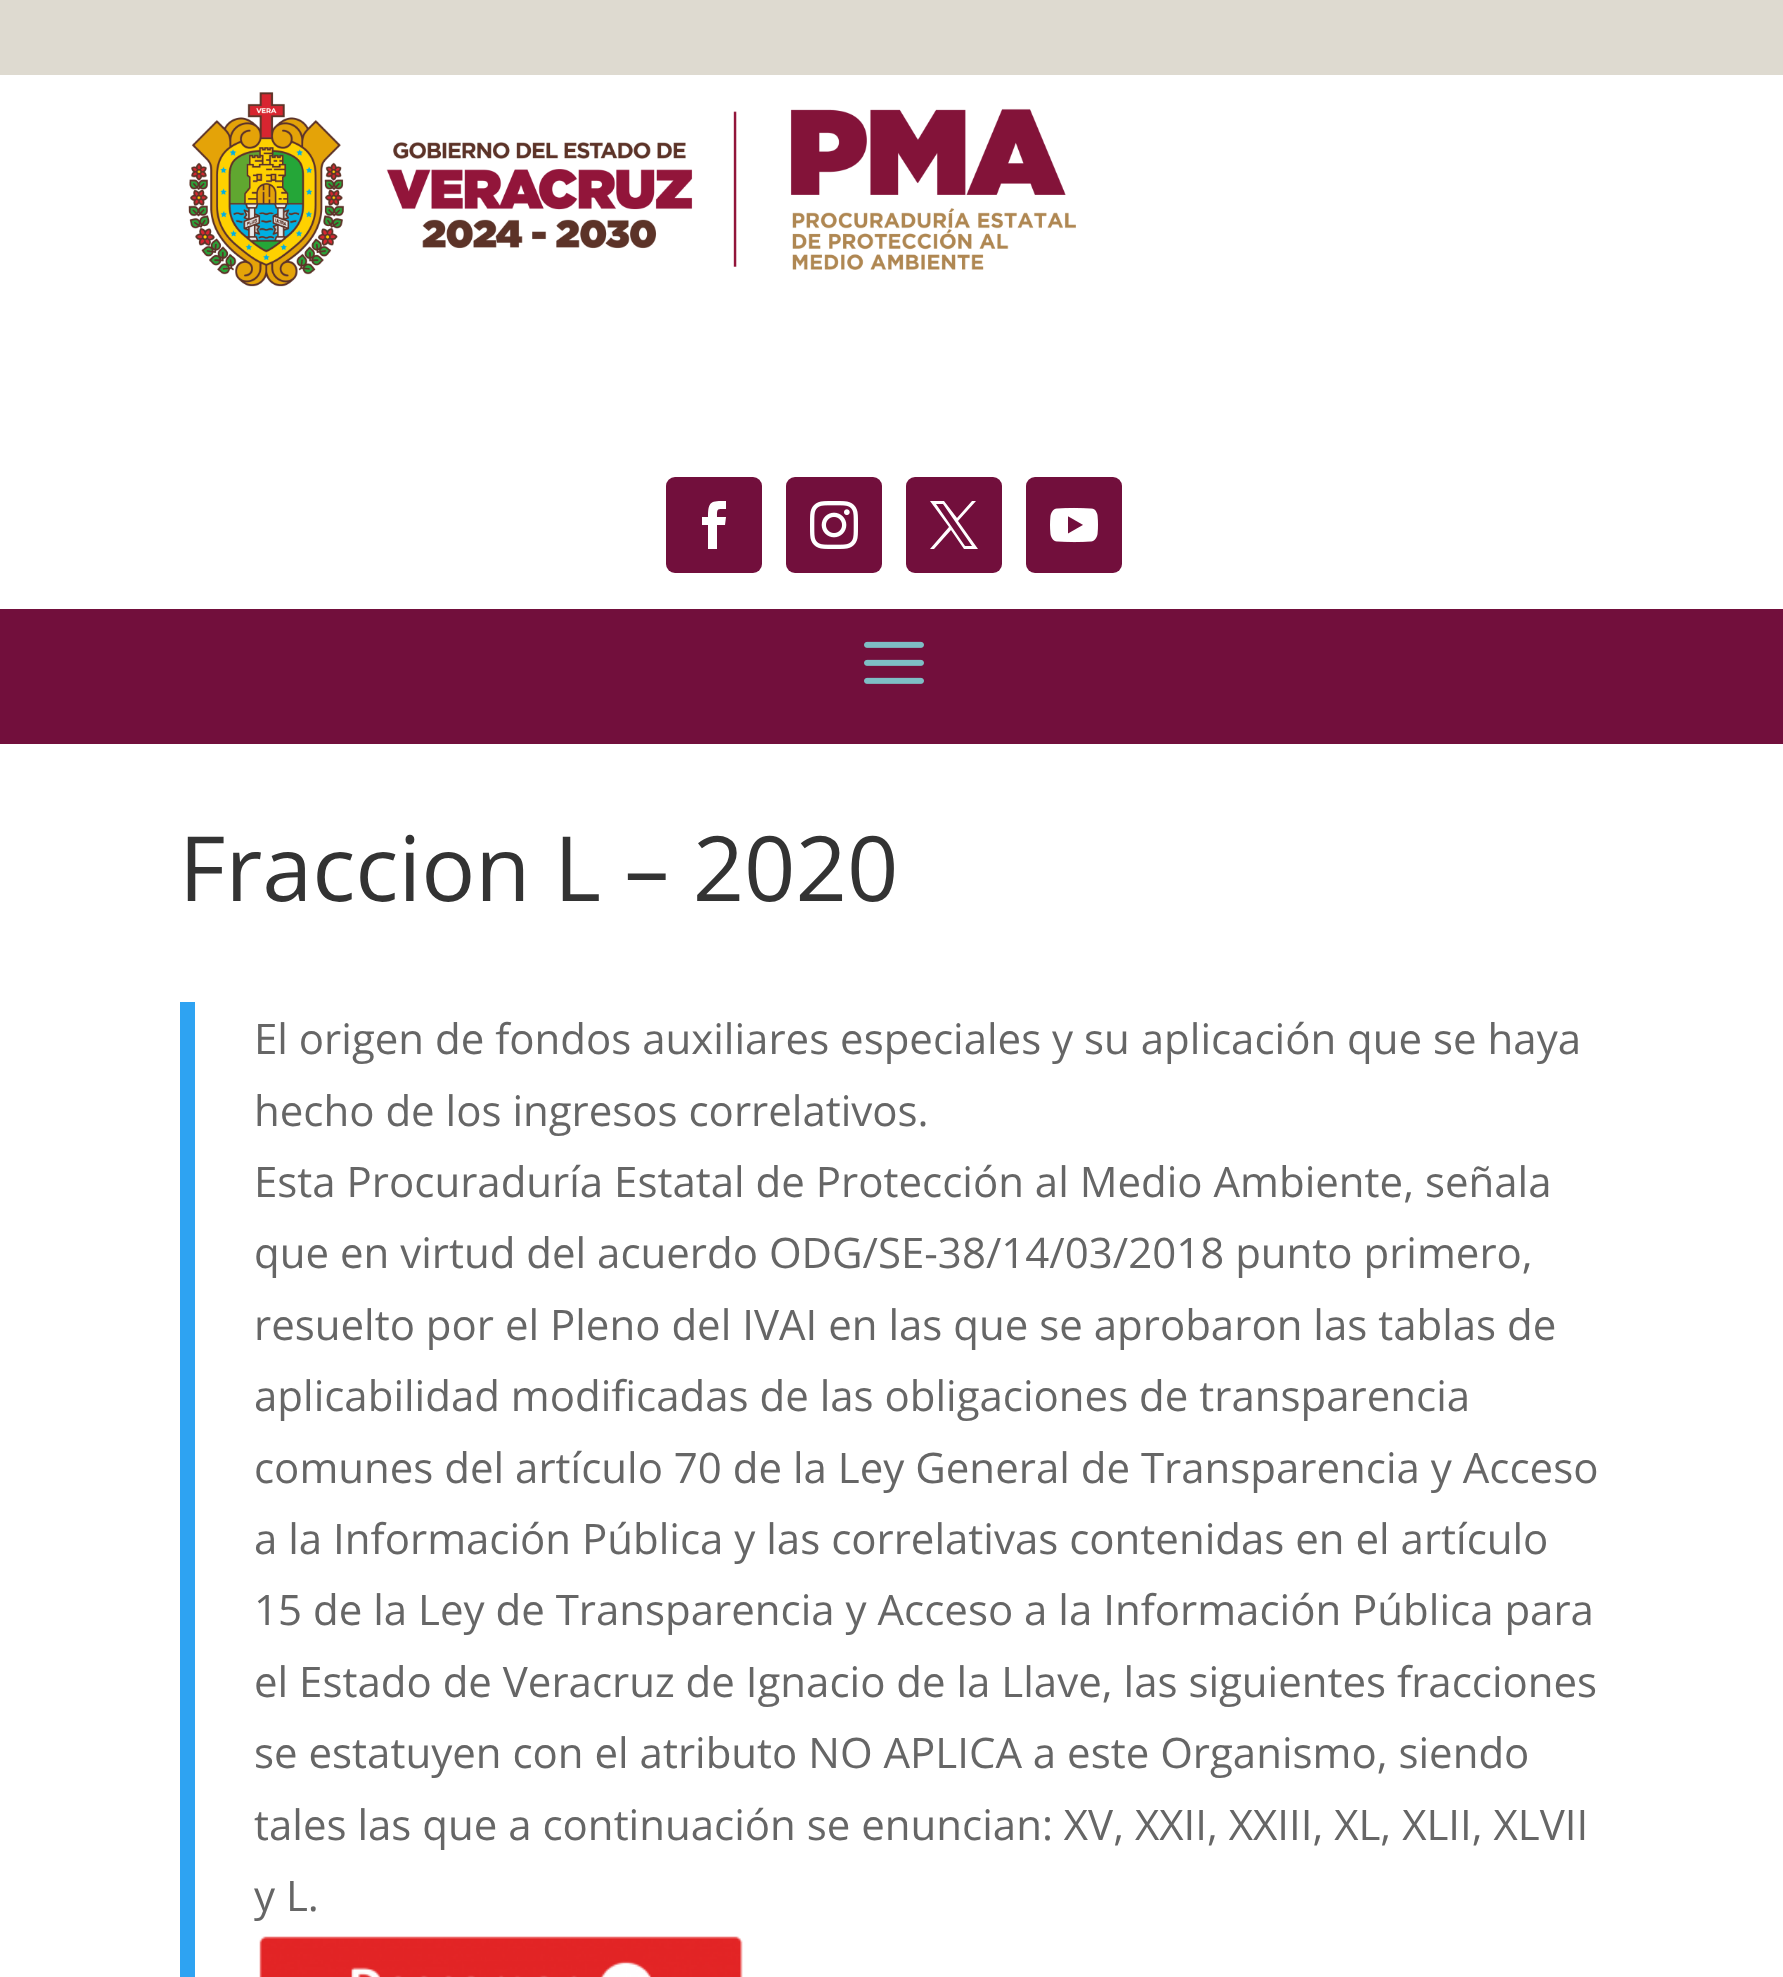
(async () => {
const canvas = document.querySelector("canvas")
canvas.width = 1783
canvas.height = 1977
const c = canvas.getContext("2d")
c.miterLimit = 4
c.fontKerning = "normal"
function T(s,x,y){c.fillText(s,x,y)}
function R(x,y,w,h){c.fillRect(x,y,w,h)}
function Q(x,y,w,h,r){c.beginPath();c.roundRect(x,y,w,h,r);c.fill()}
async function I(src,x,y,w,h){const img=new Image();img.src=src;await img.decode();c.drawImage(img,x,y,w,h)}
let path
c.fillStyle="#fff"
R(0,0,1783,1977)
c.fillStyle="#dedad0"
R(0,0,1783,75)
await I("1.png",188,92,888,195)
c.fillStyle="#720f3c"
Q(666,477,96,96,9)
c.fillStyle="#fff"
path = new Path2D("M708 549h9v-24h8l1-8h-9c0-9 0-8 9-8v-8c-15 0-18 0-18 16h-6v8h6z")
c.fill(path)
c.fillStyle="#720f3c"
Q(786,477,96,96,9)
await I("2.png",810,501,48,48)
Q(906,477,96,96,9)
c.fillStyle="#fff"
path = new Path2D("M930 501l19 26l-19 22h4l17-19l13 19h14l-20-28l18-20h-4l-15 17l-13-17zm6 3h7l29 42h-7z")
c.fill(path)
c.fillStyle="#720f3c"
Q(1026,477,96,96,9)
await I("3.png",1050,507,48,36)
R(0,609,1783,135)
await I("4.png",864,641,60,43)
c.font="90px Open Sans"
c.fillStyle="#333"
T("Fraccion L – 2020",179,901)
c.fillStyle="#2ea3f2"
R(180,1002,15,975)
c.font="42px Open Sans"
c.fillStyle="#666"
T("El origen de fondos auxiliares especiales y su aplicación que se haya",254,1054)
T("hecho de los ingresos correlativos.",254,1126)
T("Esta Procuraduría Estatal de Protección al Medio Ambiente, señala",254,1197)
T("que en virtud del acuerdo ODG/SE-38/14/03/2018 punto primero,",254,1268)
T("resuelto por el Pleno del IVAI en las que se aprobaron las tablas de",254,1340)
T("aplicabilidad modificadas de las obligaciones de transparencia",254,1411)
T("comunes del artículo 70 de la Ley General de Transparencia y Acceso",254,1483)
T("a la Información Pública y las correlativas contenidas en el artículo",254,1554)
T("15 de la Ley de Transparencia y Acceso a la Información Pública para",254,1625)
T("el Estado de Veracruz de Ignacio de la Llave, las siguientes fracciones",254,1697)
T("se estatuyen con el atributo NO APLICA a este Organismo, siendo",254,1768)
T("tales las que a continuación se enuncian: XV, XXII, XXIII, XL, XLII, XLVII",254,1840)
T("y L.",254,1911)
await I("5.png",259,1936,484,41)
})()
